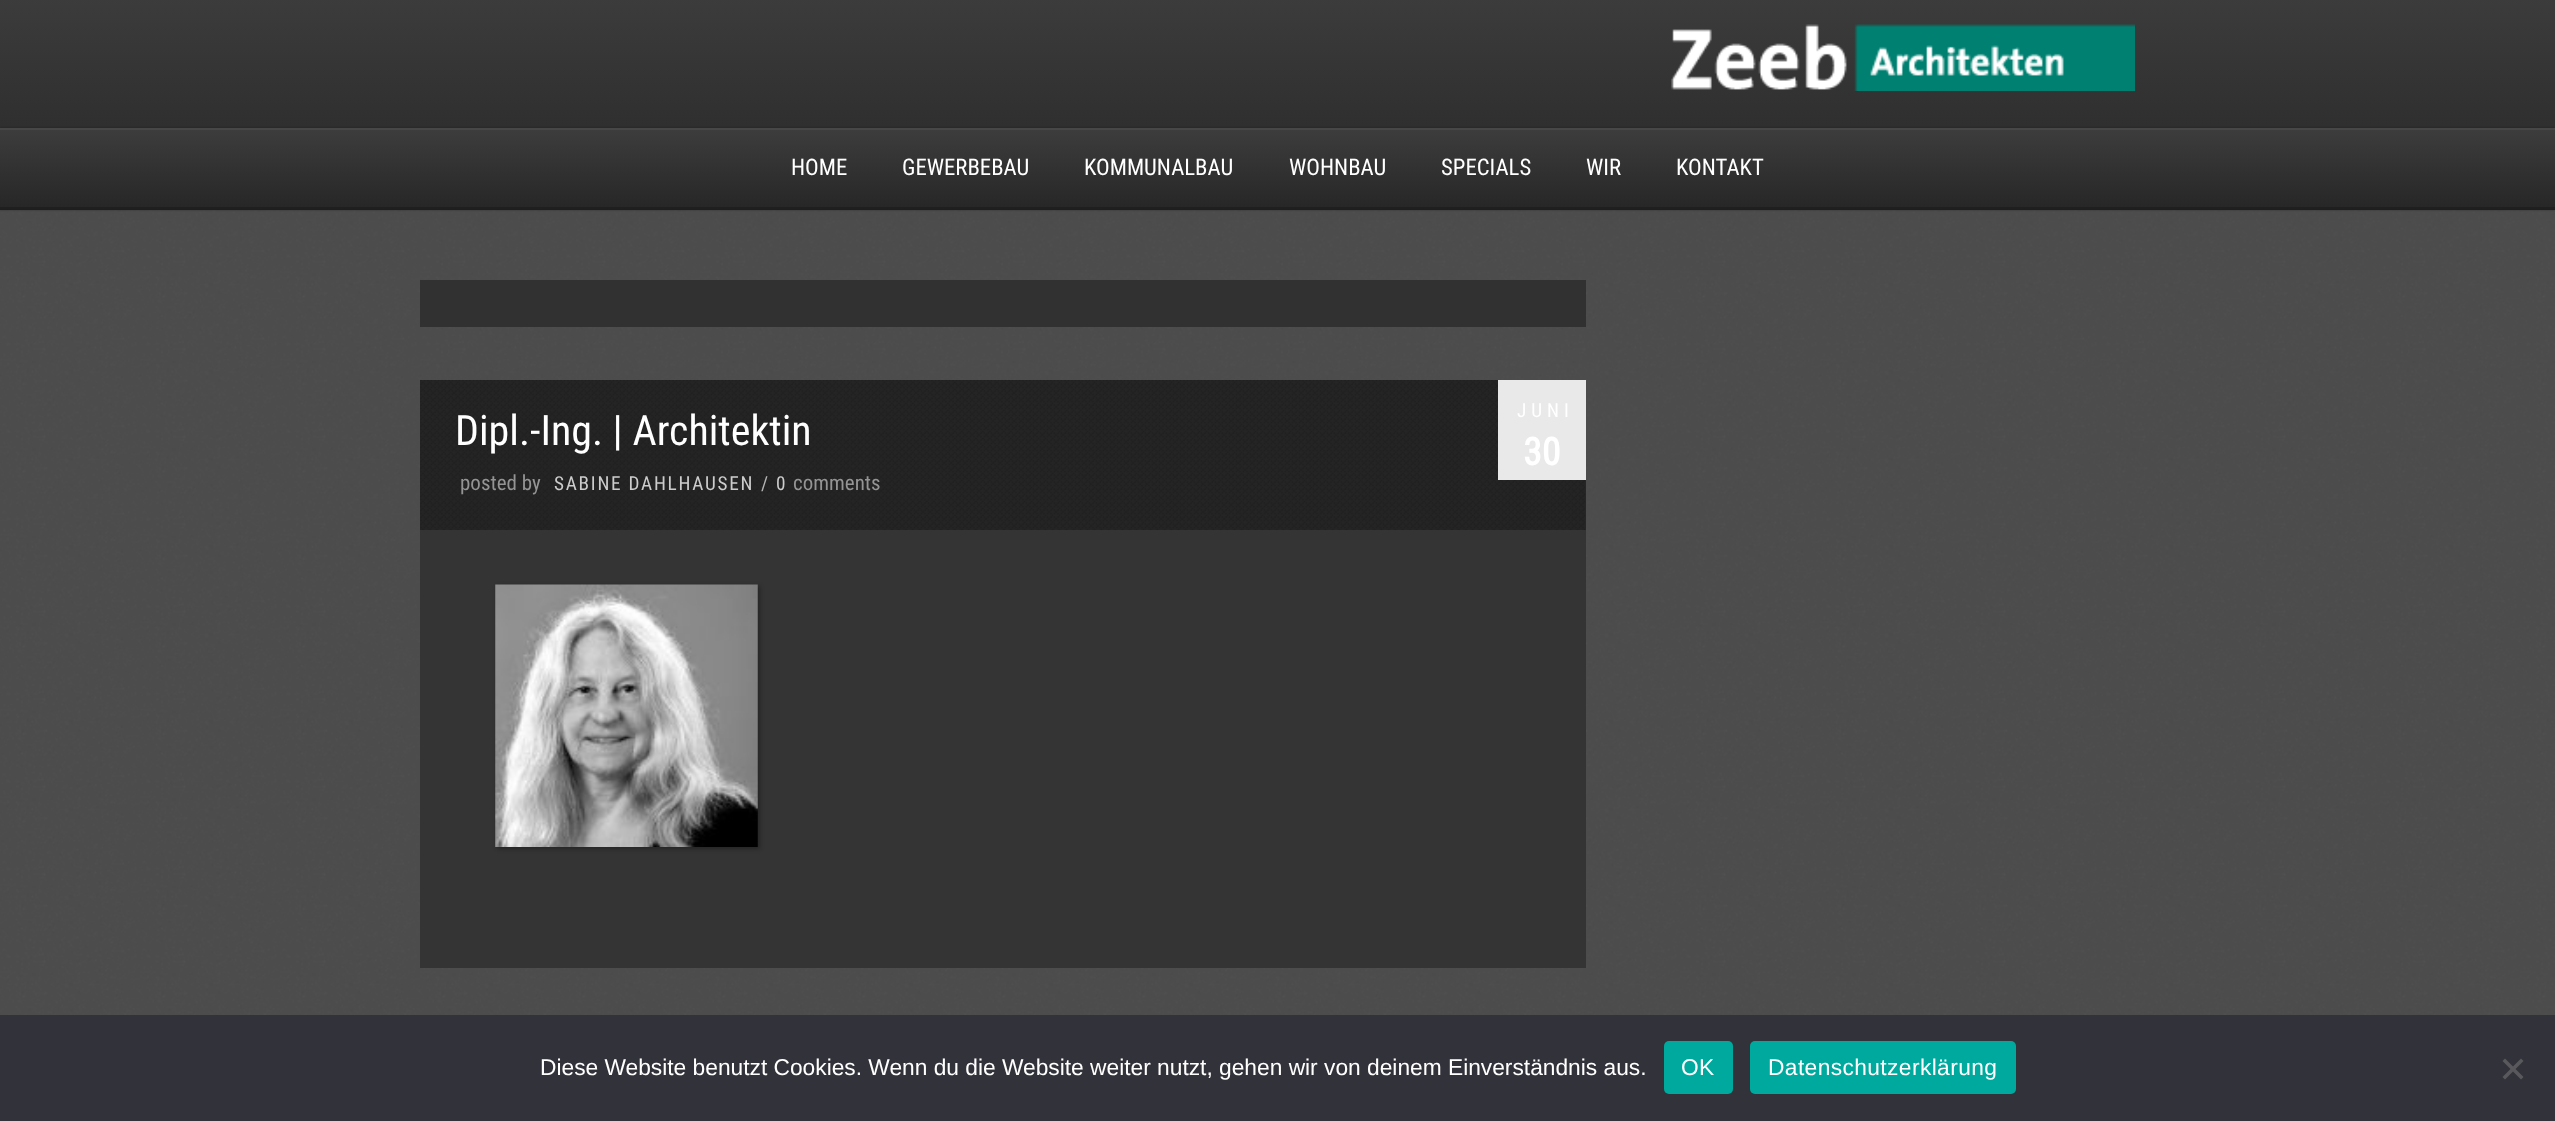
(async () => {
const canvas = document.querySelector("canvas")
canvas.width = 2555
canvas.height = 1121
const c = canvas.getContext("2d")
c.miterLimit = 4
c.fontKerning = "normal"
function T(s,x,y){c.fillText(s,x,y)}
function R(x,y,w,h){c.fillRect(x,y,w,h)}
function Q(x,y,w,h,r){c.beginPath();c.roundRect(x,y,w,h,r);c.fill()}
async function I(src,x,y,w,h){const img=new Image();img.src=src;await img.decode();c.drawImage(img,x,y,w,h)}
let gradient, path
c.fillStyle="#6a6a6a"
R(0,0,2555,1121)
await I("1.png",0,210,2555,805)
c.fillStyle="#0000004d"
c.filter="blur(1px)"
c.beginPath()
c.rect(0,-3,2555,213)
c.fill()
c.filter="none"
gradient = c.createLinearGradient(1278,-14,1278,208)
gradient.addColorStop(0,"#3d3d3d")
gradient.addColorStop(1,"#272727")
c.fillStyle = gradient
R(0,0,2555,128)
c.fillStyle="#1f1f1f"
R(0,209,2555,1)
await I("2.png",1671,24,464,67)
c.fillStyle="#0000004d"
c.filter="blur(1px)"
c.beginPath()
c.rect(0,128,2555,80)
c.fill()
c.filter="none"
gradient = c.createLinearGradient(1278,128,1278,207)
gradient.addColorStop(0,"#3d3d3d")
gradient.addColorStop(1,"#272727")
c.fillStyle = gradient
R(0,130,2555,77)
c.fillStyle="#474747"
R(0,128,2555,2)
c.fillStyle="#1f1f1f"
R(0,207,2555,2)
c.font="22.75px Roboto Condensed"
c.fillStyle="#fff"
T("HOME",791,175)
T("GEWERBEBAU",902,175)
T("KOMMUNALBAU",1084,175)
T("WOHNBAU",1289,175)
T("SPECIALS",1441,175)
T("WIR",1586,175)
T("KONTAKT",1676,175)
c.fillStyle="#313131"
R(420,280,1166,47)
c.fillStyle="#343434"
R(420,530,1166,438)
c.fillStyle="#262626"
R(420,380,1166,150)
await I("3.png",420,380,1165,150)
c.font="42px Roboto Condensed"
c.fillStyle="#fff"
T("Dipl.-Ing. | Architektin",455,445)
c.font="21px Roboto Condensed"
c.fillStyle="#949494"
T("posted by",460,490)
c.letterSpacing="1.75px"
c.font="19.25px Roboto Condensed"
c.fillStyle="#ccc"
T("SABINE DAHLHAUSEN",554,490)
c.fillStyle="#b5b5b5"
T("/",761,490)
c.fillStyle="#ccc"
T("0",776,490)
c.letterSpacing="0px"
c.font="21px Roboto Condensed"
c.fillStyle="#949494"
T("comments",793,490)
c.fillStyle="#e9e9e9"
R(1498,380,88,100)
c.letterSpacing="5px"
c.font="19.25px Roboto Condensed"
c.fillStyle="#fff"
T("JUNI",1517,417)
c.letterSpacing="0px"
c.font="bold 38px Roboto Condensed"
T("30",1523,465)
c.fillStyle="#0000004d"
c.filter="blur(2px)"
c.beginPath()
c.rect(497,586,263,263)
c.fill()
c.filter="none"
await I("4.png",495,584,263,263)
c.fillStyle="#32323a"
R(0,1015,2555,106)
c.font="22.75px Liberation Sans"
c.fillStyle="#fff"
T("Diese Website benutzt Cookies. Wenn du die Website weiter nutzt, gehen wir von deinem Einverständnis aus.",540,1075)
c.fillStyle="#00a99d"
Q(1664,1041,69,53,5)
c.letterSpacing="0.4px"
c.fillStyle="#fff"
T("OK",1681,1075)
c.fillStyle="#00a99d"
Q(1750,1041,266,53,5)
c.fillStyle="#fff"
T("Datenschutzerklärung",1768,1075)
c.fillStyle="#59595d"
path = new Path2D("M2521 1058.5l2.5 2.5l-18.5 18.5l-2.5-2.5z")
c.fill(path)
path = new Path2D("M2502.5 1061l2.5-2.5l18.5 18.5l-2.5 2.5z")
c.fill(path)
})()
